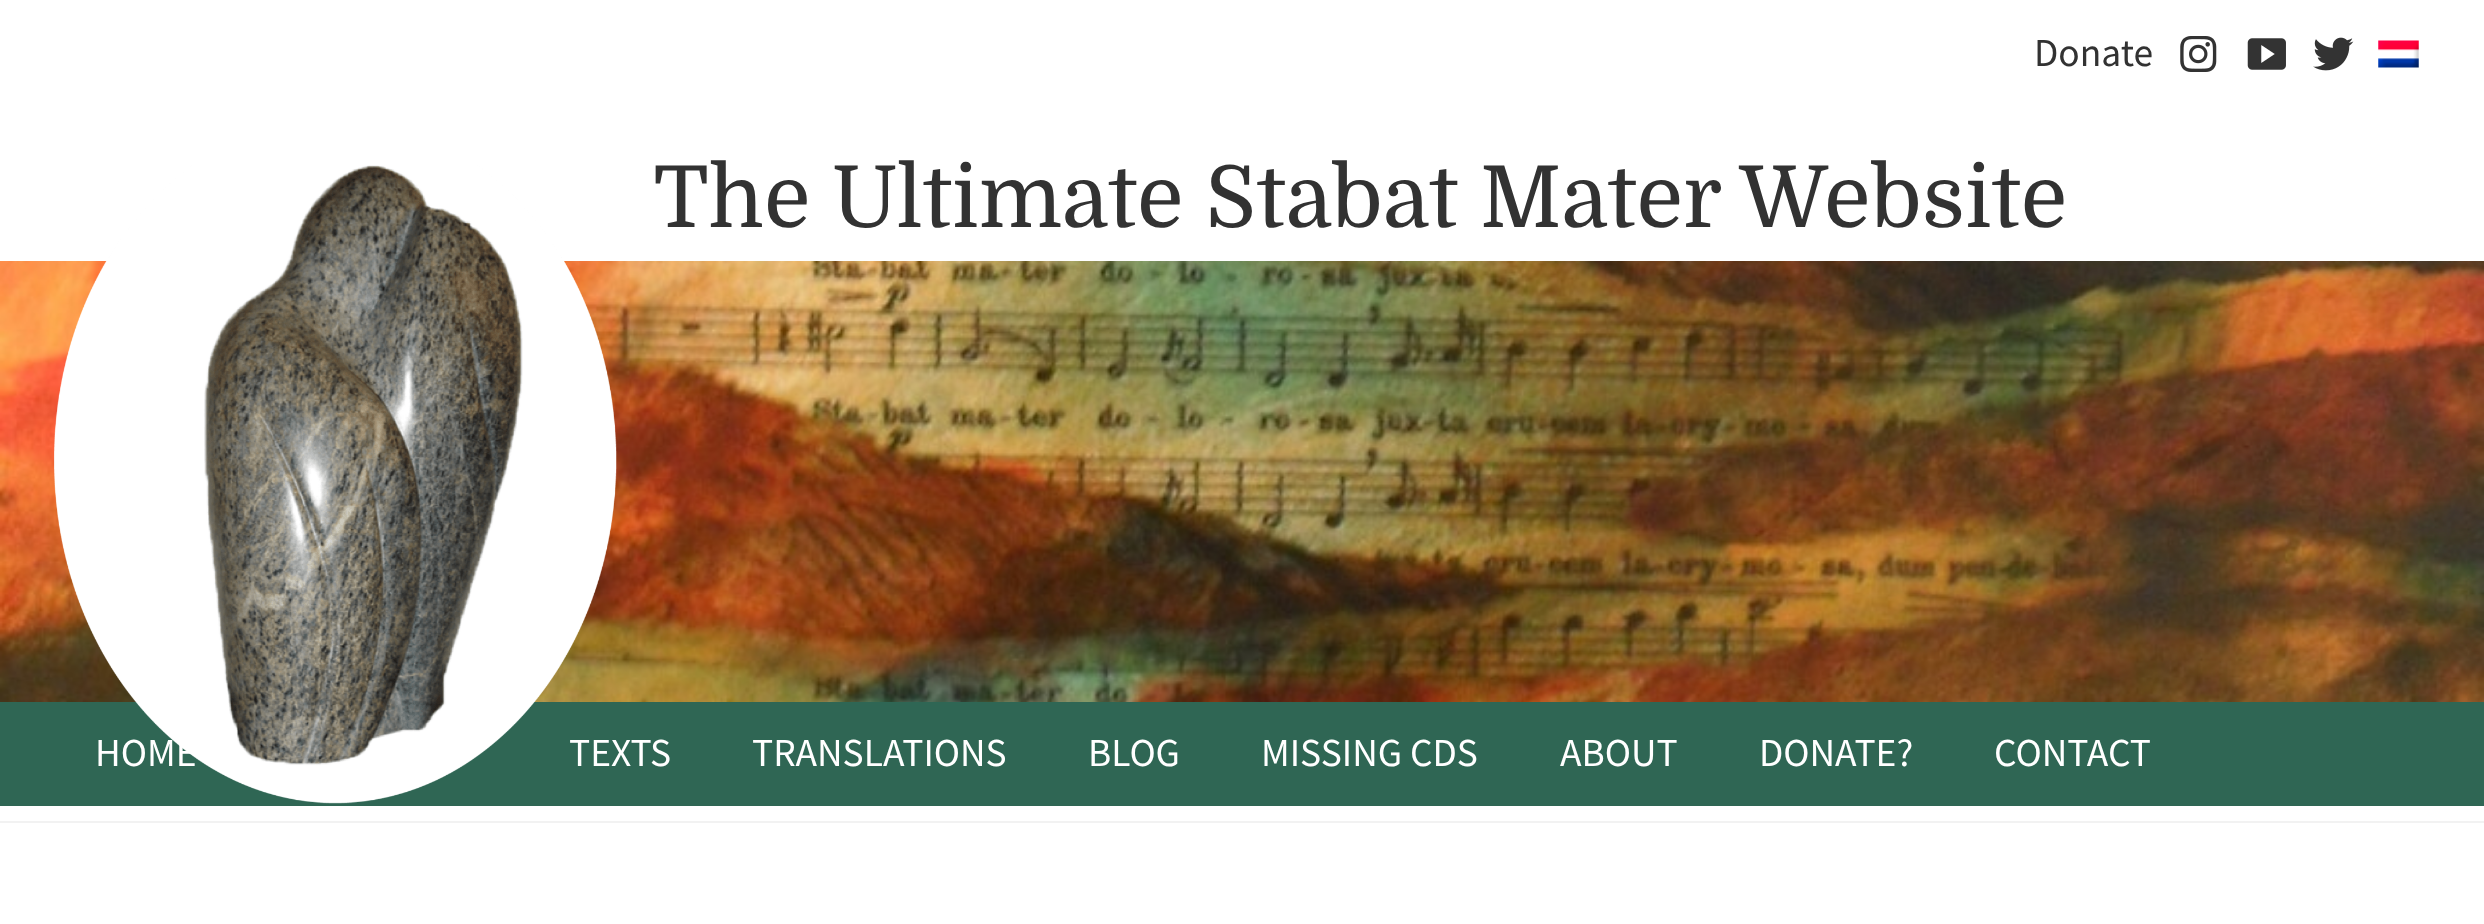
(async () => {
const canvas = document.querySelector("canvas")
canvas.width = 2484
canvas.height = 924
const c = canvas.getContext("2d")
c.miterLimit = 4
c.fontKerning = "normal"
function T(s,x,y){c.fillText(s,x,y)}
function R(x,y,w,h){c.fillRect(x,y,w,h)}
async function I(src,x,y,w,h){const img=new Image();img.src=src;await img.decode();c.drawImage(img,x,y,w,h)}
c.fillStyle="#fff"
R(0,0,2484,924)
c.font="39.5px Source Sans Pro"
c.fillStyle="#323232"
T("Donate",2034,66)
await I("1.png",2180,36,37,36)
await I("2.png",2247,38,39,32)
await I("3.png",2313,37,41,34)
await I("4.png",2378,40,41,28)
c.fillStyle="#f2f2f2"
R(0,821,2484,2)
await I("6.png",0,261,2484,441)
c.fillStyle="#2f6654"
R(0,702,2484,104)
c.fillStyle="#fff"
T("HOME",95,766)
T("TEXTS",569,766)
await I("5.png",54,165,563,639)
c.font="85.5px Domine"
c.fillStyle="#323232"
T("The Ultimate Stabat Mater Website",653,227)
c.font="39.5px Source Sans Pro"
c.fillStyle="#fff"
T("TRANSLATIONS",752,766)
T("BLOG",1088,766)
T("MISSING CDS",1261,766)
T("ABOUT",1560,766)
T("DONATE?",1759,766)
T("CONTACT",1994,766)
})()
